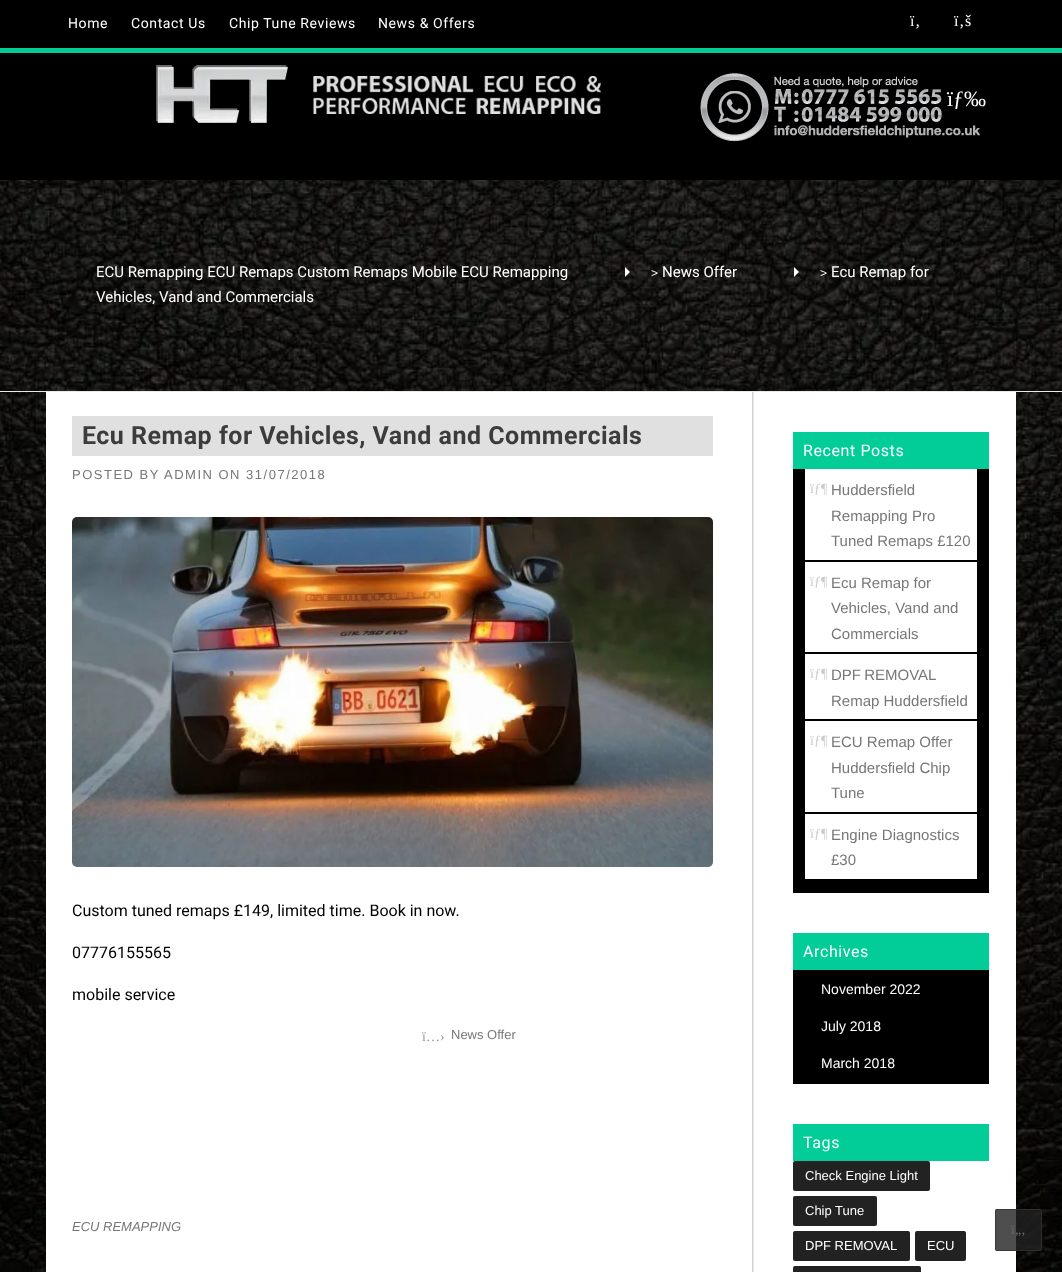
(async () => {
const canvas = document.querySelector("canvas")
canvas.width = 1062
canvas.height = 1272
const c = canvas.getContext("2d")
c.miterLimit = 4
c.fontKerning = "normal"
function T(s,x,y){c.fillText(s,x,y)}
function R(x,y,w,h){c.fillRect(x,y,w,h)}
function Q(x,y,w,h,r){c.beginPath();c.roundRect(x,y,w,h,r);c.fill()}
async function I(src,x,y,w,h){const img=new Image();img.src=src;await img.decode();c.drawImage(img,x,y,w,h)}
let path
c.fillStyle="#fff"
R(0,0,1062,1272)
await I("1.png",0,180,1062,1092)
c.fillStyle="#000"
R(0,0,1062,48)
c.fillStyle="#02cd99"
R(0,48,1062,5)
c.letterSpacing="0.6px"
c.font="14px Roboto"
c.fillStyle="#fff"
T("Home",68,28)
T("Contact Us",131,28)
T("Chip Tune Reviews",229,28)
T("News & Offers",378,28)
c.font="16px Liberation Serif"
T("ï‚",910,26)
T("ï‚š",954,26)
c.fillStyle="#000"
R(0,53,1062,127)
await I("2.png",156,65,445,59)
await I("3.png",700,73,280,69)
c.letterSpacing="0px"
c.font="22px Liberation Serif"
c.fillStyle="#fff"
T("ïƒ‰",947,106)
c.fillStyle="#e9e9e9"
R(0,391,1062,1)
c.font="15px Roboto"
c.fillStyle="#fff"
T("ECU Remapping ECU Remaps Custom Remaps Mobile ECU Remapping",96,277)
c.fillStyle="#00000033"
path = new Path2D("M625 278v-12l6 6z")
c.fill(path)
c.fillStyle="#fff"
path = new Path2D("M625 277v-10l5 5z")
c.fill(path)
c.font="12px Liberation Sans"
T(">",651,277)
c.font="15px Roboto"
T("News Offer",662,277)
c.fillStyle="#00000033"
path = new Path2D("M794 278v-12l6 6z")
c.fill(path)
c.fillStyle="#fff"
path = new Path2D("M794 277v-10l5 5z")
c.fill(path)
c.font="12px Liberation Sans"
T(">",820,277)
c.font="15px Roboto"
T("Ecu Remap for",831,277)
T("Vehicles, Vand and Commercials",96,302)
R(46,392,970,880)
c.fillStyle="#d1d1d1"
R(752,392,1,880)
c.fillStyle="#e0e0e0"
R(72,416,641,40)
c.letterSpacing="0.5px"
c.font="bold 25px Roboto"
c.fillStyle="#3b3c3b"
T("Ecu Remap for Vehicles, Vand and Commercials",82,444)
c.letterSpacing="1.5px"
c.font="13px Liberation Sans"
c.fillStyle="#777"
T("POSTED BY",72,479)
T("ADMIN ON 31/07/2018",164,479)
await I("4.png",72,517,641,350)
c.letterSpacing="0px"
c.font="16px Roboto"
c.fillStyle="#000"
T("Custom tuned remaps £149, limited time. Book in now.",72,916)
T("07776155565",72,958)
T("mobile service",72,1000)
c.font="italic 13px Liberation Sans"
c.fillStyle="#777"
T("ECU REMAPPING",72,1231)
c.font="14px Liberation Serif"
c.fillStyle="#999"
T("ï…›",422,1041)
c.font="13px Liberation Sans"
c.fillStyle="#777"
T("News Offer",451,1039)
c.fillStyle="#e9e9e9"
R(753,392,1,880)
c.fillStyle="#02cd99"
R(793,432,196,37)
c.letterSpacing="0.6px"
c.font="16px Roboto"
c.fillStyle="#fff"
T("Recent Posts",803,456)
c.fillStyle="#000"
R(793,469,196,424)
c.fillStyle="#fff"
R(805,469,172,91)
c.letterSpacing="0px"
c.font="14px Liberation Serif"
c.fillStyle="#ccc"
T("ïƒ¶",810,493)
c.font="15px Liberation Sans"
c.fillStyle="#777"
T("Huddersfield",831,495)
T("Remapping Pro",831,521)
T("Tuned Remaps £120",831,546)
c.fillStyle="#fff"
R(805,562,172,90)
c.font="14px Liberation Serif"
c.fillStyle="#ccc"
T("ïƒ¶",810,586)
c.font="15px Liberation Sans"
c.fillStyle="#777"
T("Ecu Remap for",831,588)
T("Vehicles, Vand and",831,613)
T("Commercials",831,639)
c.fillStyle="#fff"
R(805,654,172,65)
c.font="14px Liberation Serif"
c.fillStyle="#ccc"
T("ïƒ¶",810,678)
c.wordSpacing="-1px"
c.font="15px Liberation Sans"
c.fillStyle="#777"
T("DPF REMOVAL",831,680)
c.wordSpacing="0px"
T("Remap Huddersfield",831,706)
c.fillStyle="#fff"
R(805,721,172,91)
c.font="14px Liberation Serif"
c.fillStyle="#ccc"
T("ïƒ¶",810,745)
c.font="15px Liberation Sans"
c.fillStyle="#777"
T("ECU Remap Offer",831,747)
T("Huddersfield Chip",831,773)
T("Tune",831,798)
c.fillStyle="#fff"
R(805,814,172,65)
c.font="14px Liberation Serif"
c.fillStyle="#ccc"
T("ïƒ¶",810,838)
c.font="15px Liberation Sans"
c.fillStyle="#777"
T("Engine Diagnostics",831,840)
T("£30",831,865)
c.fillStyle="#02cd99"
R(793,933,196,37)
c.letterSpacing="0.6px"
c.font="16px Roboto"
c.fillStyle="#fff"
T("Archives",803,957)
c.fillStyle="#000"
R(793,970,196,114)
c.letterSpacing="0px"
c.font="14px Liberation Sans"
c.fillStyle="#fff"
T("November 2022",821,994)
T("July 2018",821,1031)
T("March 2018",821,1068)
c.fillStyle="#02cd99"
R(793,1124,196,37)
c.letterSpacing="0.6px"
c.font="16px Roboto"
c.fillStyle="#fff"
T("Tags",803,1148)
c.fillStyle="#222"
Q(793,1161,137,30,2)
c.letterSpacing="0px"
c.font="13px Liberation Sans"
c.fillStyle="#fff"
T("Check Engine Light",805,1180)
c.fillStyle="#222"
Q(793,1196,84,30,2)
c.fillStyle="#fff"
T("Chip Tune",805,1215)
c.fillStyle="#222"
Q(793,1231,117,30,2)
c.fillStyle="#fff"
T("DPF REMOVAL",805,1250)
c.fillStyle="#222"
Q(915,1231,51,30,2)
c.fillStyle="#fff"
T("ECU",927,1250)
c.fillStyle="#222"
Q(793,1266,128,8,2)
c.fillStyle="#222222cc"
Q(995,1209,47,42,2)
c.beginPath()
c.roundRect(995.5,1209.5,46,41,1.5)
c.strokeStyle="#333333cc"
c.stroke()
c.font="14px Liberation Serif"
c.fillStyle="#6a6a6a"
T("ï„‚",1011,1234)
})()
